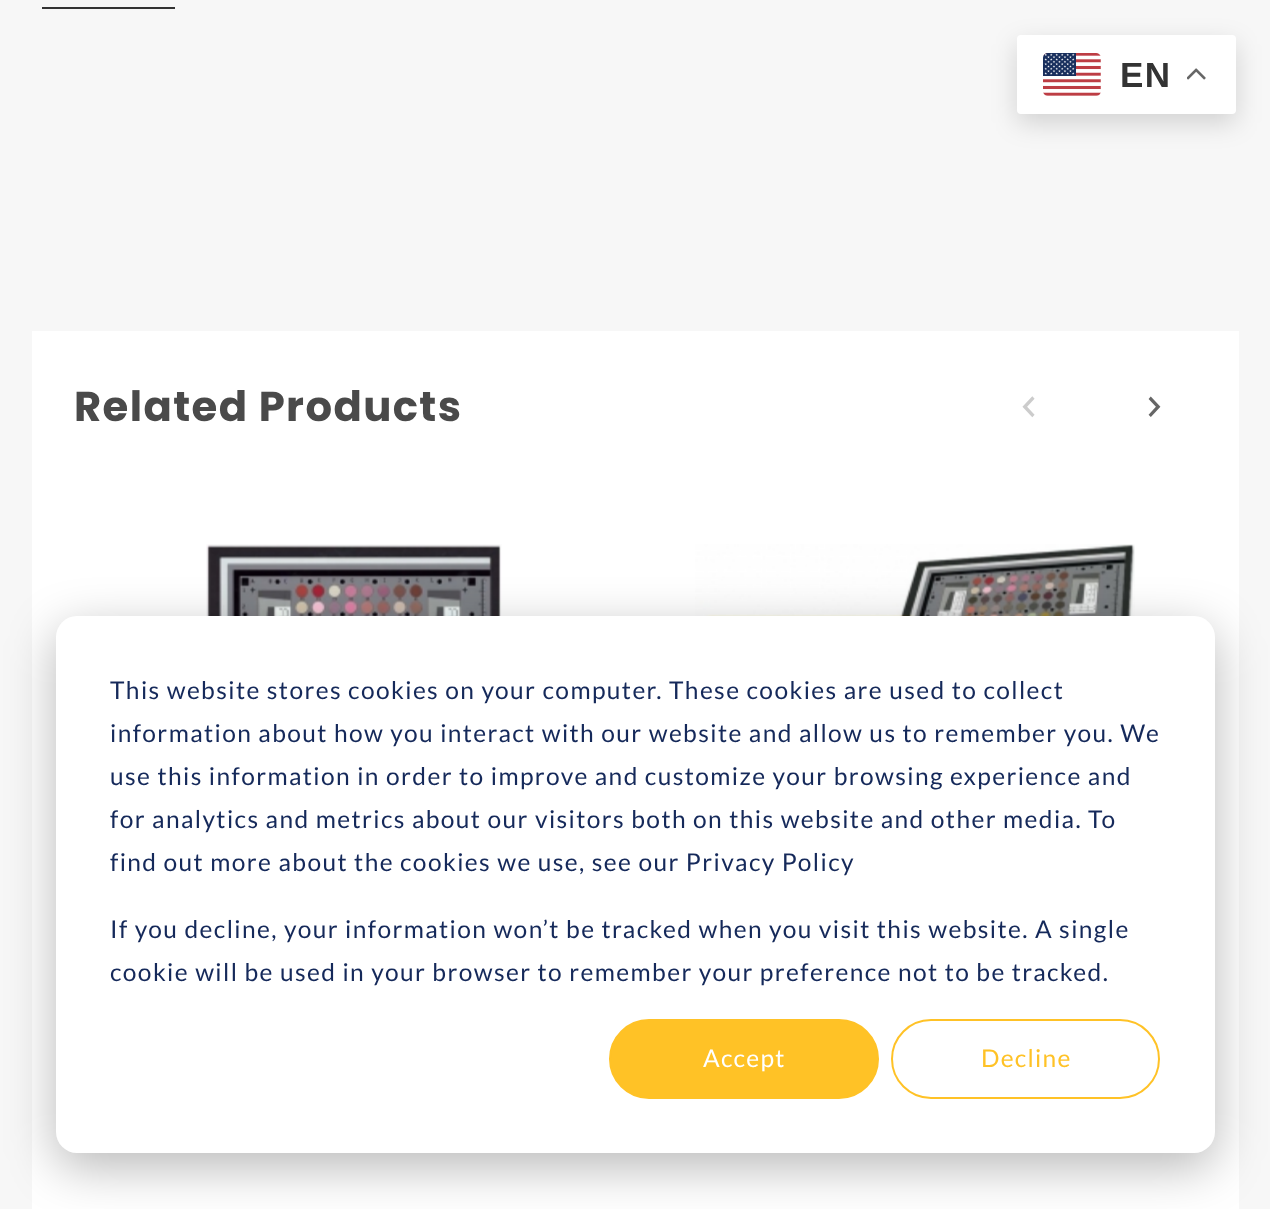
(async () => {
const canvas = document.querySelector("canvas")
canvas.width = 1270
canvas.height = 1209
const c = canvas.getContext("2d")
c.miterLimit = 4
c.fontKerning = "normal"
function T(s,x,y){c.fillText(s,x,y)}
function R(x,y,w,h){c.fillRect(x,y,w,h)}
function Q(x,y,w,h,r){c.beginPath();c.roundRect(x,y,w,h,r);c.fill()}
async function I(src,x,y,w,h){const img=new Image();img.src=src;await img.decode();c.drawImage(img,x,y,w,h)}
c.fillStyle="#f7f7f7"
R(0,0,1270,1209)
c.fillStyle="#00000026"
c.filter="blur(13px)"
c.beginPath()
c.roundRect(1017,44,219,79,4)
c.fill()
c.filter="none"
c.fillStyle="#fff"
Q(1017,35,219,79,4)
await I("1.png",1043,53,58,43)
c.letterSpacing="1.4px"
c.font="bold 35px Liberation Sans"
c.fillStyle="#333"
T("EN",1120,87)
await I("2.png",1187,68,19,12)
R(42,7,133,2)
c.fillStyle="#fff"
R(32,331,1207,878)
c.font="bold 41.75px Poppins"
c.fillStyle="#4a4a4a"
T("Related Products",74,421)
c.letterSpacing="0px"
c.font="21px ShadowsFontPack"
c.fillStyle="#ccc"
T("2",1018,416)
c.fillStyle="#666"
T("3",1144,416)
await I("3.png",206,544,296,72)
await I("4.png",695,544,440,72)
c.fillStyle="#00000047"
c.filter="blur(24.5px)"
c.beginPath()
c.roundRect(56,630,1159,537,21)
c.fill()
c.filter="none"
c.fillStyle="#fff"
Q(56,616,1159,537,21)
c.letterSpacing="1.4px"
c.font="24.5px Lato"
c.fillStyle="#15295a"
T("This website stores cookies on your computer. These cookies are used to collect",110,699)
T("information about how you interact with our website and allow us to remember you. We",110,742)
T("use this information in order to improve and customize your browsing experience and",110,785)
T("for analytics and metrics about our visitors both on this website and other media. To",110,828)
T("find out more about the cookies we use, see our Privacy Policy",110,871)
T("If you decline, your information won’t be tracked when you visit this website. A single",110,938)
T("cookie will be used in your browser to remember your preference not to be tracked.",110,981)
c.fillStyle="#ffc226"
c.beginPath()
c.roundRect(610,1020,268,78,39)
c.fill()
c.strokeStyle="#ffc226"
c.lineWidth=2
c.stroke()
c.letterSpacing="1.25px"
c.fillStyle="#fff"
T("Accept",703,1067)
c.beginPath()
c.roundRect(892,1020,267,78,39)
c.stroke()
c.fillStyle="#ffc226"
T("Decline",981,1067)
})()
